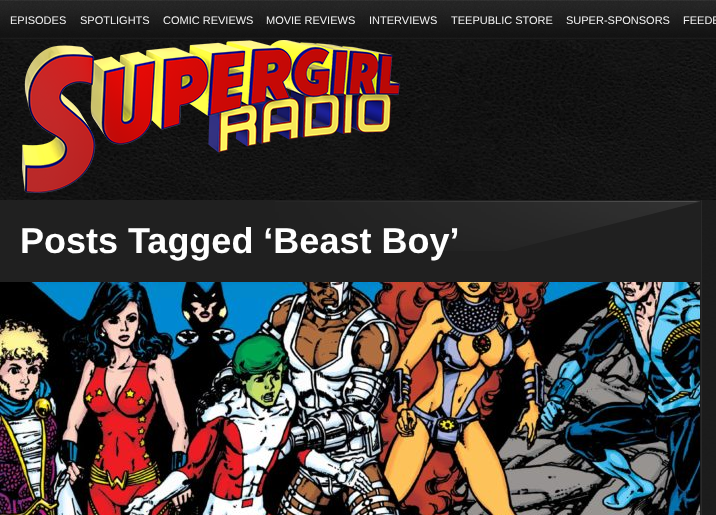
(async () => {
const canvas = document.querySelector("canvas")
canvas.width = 716
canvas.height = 515
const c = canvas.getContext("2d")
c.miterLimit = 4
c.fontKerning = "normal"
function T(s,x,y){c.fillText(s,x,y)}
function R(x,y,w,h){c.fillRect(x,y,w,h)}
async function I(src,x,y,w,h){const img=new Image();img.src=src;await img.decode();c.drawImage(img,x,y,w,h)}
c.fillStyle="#fff"
R(0,0,716,515)
await I("1.png",0,40,716,475)
await I("2.png",0,0,716,40)
c.font="11px Liberation Sans"
c.fillStyle="#f4f4f4"
T("EPISODES",10,24)
T("SPOTLIGHTS",80,24)
T("COMIC REVIEWS",163,24)
T("MOVIE REVIEWS",266,24)
T("INTERVIEWS",369,24)
T("TEEPUBLIC STORE",451,24)
T("SUPER-SPONSORS",566,24)
T("FEEDB",683,24)
await I("3.png",22,40,378,153)
await I("4.png",700,200,16,315)
c.fillStyle="#202020"
R(0,200,700,82)
await I("5.png",275,201,425,50)
c.font="bold 36px Liberation Sans"
c.fillStyle="#fff"
T("Posts Tagged ‘Beast Boy’",20,253)
await I("6.png",0,282,700,233)
})()
